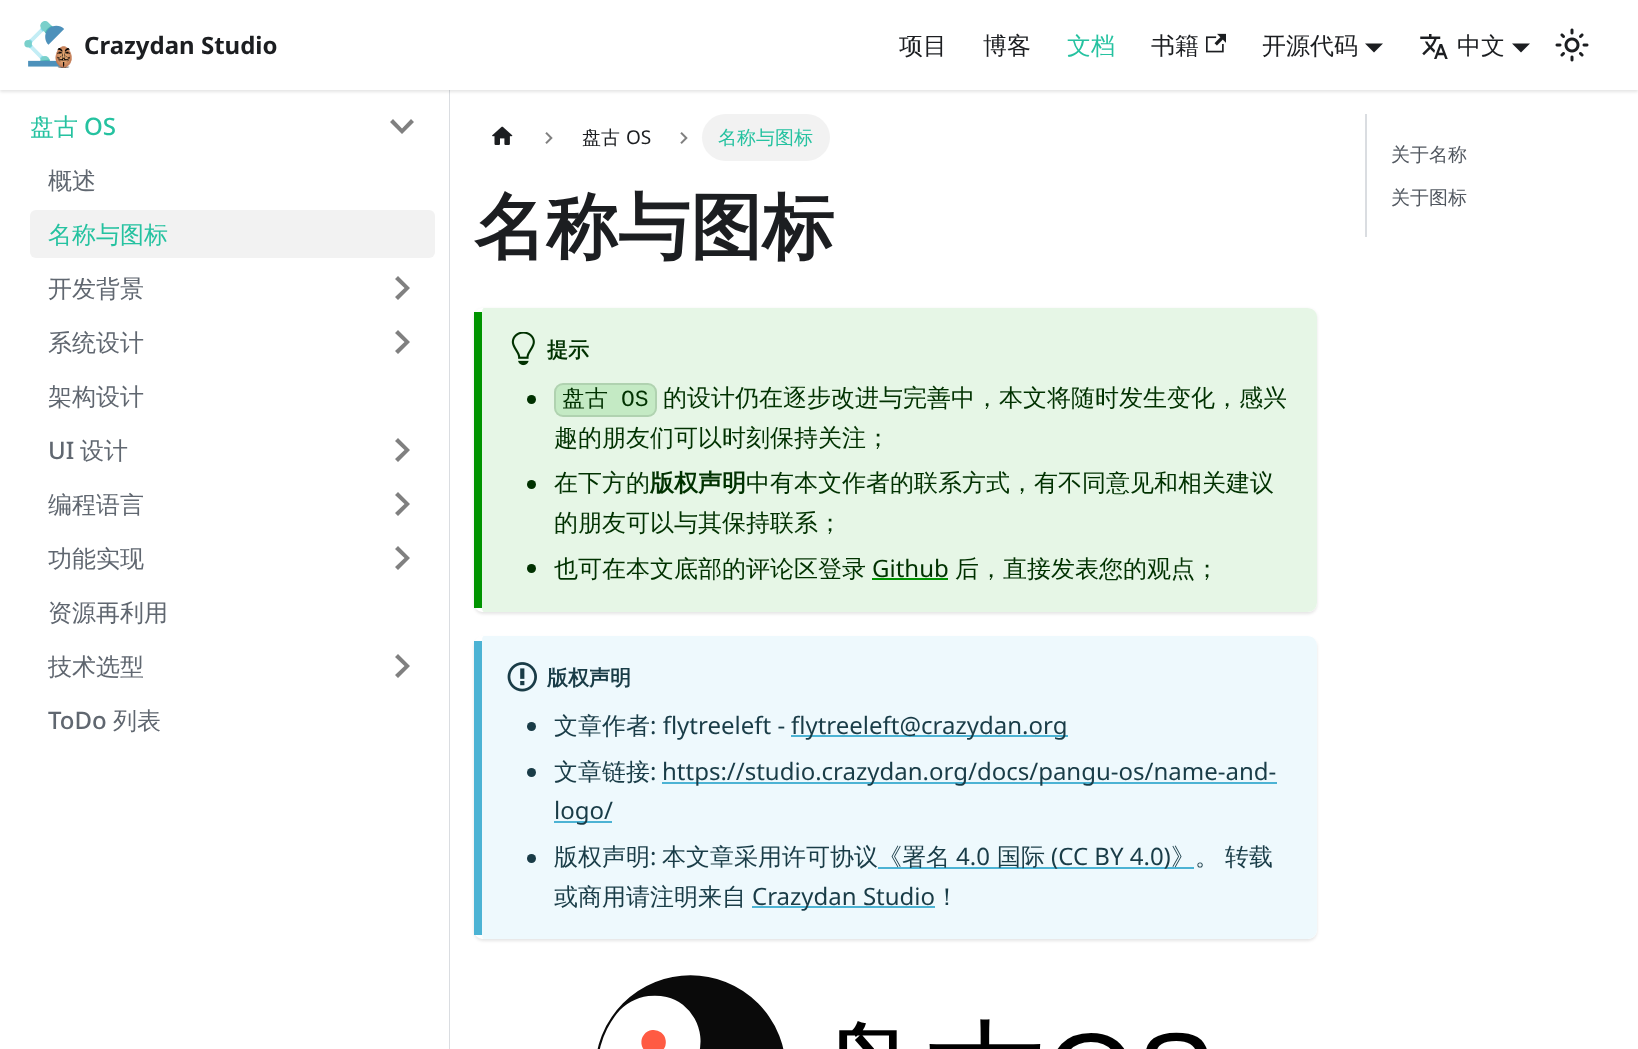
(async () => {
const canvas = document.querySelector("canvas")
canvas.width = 1638
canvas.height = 1049
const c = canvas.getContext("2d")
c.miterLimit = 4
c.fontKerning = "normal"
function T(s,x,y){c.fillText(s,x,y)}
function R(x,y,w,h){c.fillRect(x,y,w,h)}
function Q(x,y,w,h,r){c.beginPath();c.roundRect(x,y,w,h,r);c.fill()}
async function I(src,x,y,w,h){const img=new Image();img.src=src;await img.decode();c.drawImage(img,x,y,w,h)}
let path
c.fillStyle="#fff"
R(0,0,1638,1049)
c.fillStyle="#dadde1"
R(449,90,1,959)
c.fillStyle="#0000001a"
c.filter="blur(1.5px)"
c.beginPath()
c.rect(0,2,1638,90)
c.fill()
c.filter="none"
c.fillStyle="#fff"
R(0,0,1638,90)
await I("1.png",24,21,48,47)
c.font="bold 24px Noto Sans"
c.fillStyle="#1c1e21"
T("Crazydan Studio",84,54)
c.font="500 24px WenQuanYi Zen Hei"
T("项目",899,54)
T("博客",983,54)
c.fillStyle="#25c2a0"
T("文档",1067,54)
c.fillStyle="#1c1e21"
T("书籍",1151,54)
await I("2.png",1206,33,20,20)
T("开源代码",1262,54)
path = new Path2D("M1365 43.5h18l-9 9z")
c.fill(path)
await I("3.png",1420,34,28,25)
T("中文",1457,54)
path = new Path2D("M1512 43.5h18l-9 9z")
c.fill(path)
await I("4.png",1555,28,34,34)
c.fillStyle="#25c2a0"
T("盘古",30,135)
c.font="500 24px Noto Sans"
T("OS",84,135)
c.fillStyle="#808080"
path = new Path2D("M411 119l-9 9.5l-9-9.5l-3 3l12 12l12-12z")
c.fill(path)
c.font="500 24px WenQuanYi Zen Hei"
c.fillStyle="#606770"
T("概述",48,189)
c.fillStyle="#f2f2f2"
Q(30,210,405,48,6)
c.fillStyle="#25c2a0"
T("名称与图标",48,243)
c.fillStyle="#606770"
T("开发背景",48,297)
c.fillStyle="#808080"
path = new Path2D("M395 279l9.5 9l-9.5 9l3 3l12-12l-12-12z")
c.fill(path)
c.fillStyle="#606770"
T("系统设计",48,351)
c.fillStyle="#808080"
path = new Path2D("M395 333l9.5 9l-9.5 9l3 3l12-12l-12-12z")
c.fill(path)
c.fillStyle="#606770"
T("架构设计",48,405)
c.font="500 24px Noto Sans"
T("UI",48,459)
c.font="500 24px WenQuanYi Zen Hei"
T("设计",80,459)
c.fillStyle="#808080"
path = new Path2D("M395 441l9.5 9l-9.5 9l3 3l12-12l-12-12z")
c.fill(path)
c.fillStyle="#606770"
T("编程语言",48,513)
c.fillStyle="#808080"
path = new Path2D("M395 495l9.5 9l-9.5 9l3 3l12-12l-12-12z")
c.fill(path)
c.fillStyle="#606770"
T("功能实现",48,567)
c.fillStyle="#808080"
path = new Path2D("M395 549l9.5 9l-9.5 9l3 3l12-12l-12-12z")
c.fill(path)
c.fillStyle="#606770"
T("资源再利用",48,621)
T("技术选型",48,675)
c.fillStyle="#808080"
path = new Path2D("M395 657l9.5 9l-9.5 9l3 3l12-12l-12-12z")
c.fill(path)
c.font="500 24px Noto Sans"
c.fillStyle="#606770"
T("ToDo",48,729)
c.font="500 24px WenQuanYi Zen Hei"
T("列表",113,729)
await I("5.png",492,126,21,19)
await I("6.png",545,132,8,12)
c.font="500 19px WenQuanYi Zen Hei"
c.fillStyle="#1c1e21"
T("盘古",582,144)
c.font="19px Noto Sans"
T("OS",626,144)
await I("6.png",680,132,8,12)
c.fillStyle="#f2f2f2"
Q(702,114,128,47,23.5)
c.font="500 19px WenQuanYi Zen Hei"
c.fillStyle="#25c2a0"
T("名称与图标",718,144)
c.font="bold 72px WenQuanYi Zen Hei"
c.fillStyle="#1c1e21"
T("名称与图标",474,252)
c.save()
path = new Path2D("M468 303h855v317h-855zm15 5h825c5 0 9 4 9 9v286c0 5-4 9-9 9h-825c-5 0-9-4-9-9v-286c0-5 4-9 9-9z")
c.clip(path,"evenodd")
c.fillStyle="#0000001a"
c.filter="blur(1.5px)"
c.beginPath()
c.roundRect(474,309,843,305,9)
c.fill()
c.filter="none"
c.restore()
c.fillStyle="#e6f6e6"
path = new Path2D("M484 308h823c6 0 10 4 10 9v285c0 6-4 10-10 10h-823c-2 0-2-4-2-10v-285c0-5 0-9 2-9z")
c.fill(path)
c.fillStyle="#009400"
R(474,312,8,296)
await I("7.png",511,332,24,34)
c.font="bold 21px WenQuanYi Zen Hei"
c.fillStyle="#003100"
T("提示",547,357)
c.beginPath()
c.arc(531.5,399.5,4.5,0,7)
c.fill()
c.fillStyle="#c4eac4"
Q(554,383,103,34,9)
c.beginPath()
c.roundRect(555,384,101,32,8)
c.strokeStyle="#0000001a"
c.lineWidth=2
c.stroke()
c.font="500 23px WenQuanYi Zen Hei"
c.fillStyle="#003100"
T("盘古",562,406)
c.font="23px Liberation Mono"
T("OS",621,406)
c.font="500 24px WenQuanYi Zen Hei"
T("的设计仍在逐步改进与完善中，本文将随时发生变化，感兴",663,406)
T("趣的朋友们可以时刻保持关注；",554,446)
c.beginPath()
c.arc(531.5,484.5,4.5,0,7)
c.fill()
T("在下方的",554,491)
c.font="bold 24px WenQuanYi Zen Hei"
T("版权声明",650,491)
c.font="500 24px WenQuanYi Zen Hei"
T("中有本文作者的联系方式，有不同意见和相关建议",746,491)
T("的朋友可以与其保持联系；",554,531)
c.beginPath()
c.arc(531.5,568.5,4.5,0,7)
c.fill()
T("也可在本文底部的评论区登录",554,577)
c.font="24px Noto Sans"
T("Github",872,577)
c.fillStyle="#009400"
R(872,578,76,2)
c.font="500 24px WenQuanYi Zen Hei"
c.fillStyle="#003100"
T("后，直接发表您的观点；",955,577)
c.save()
path = new Path2D("M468 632h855v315h-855zm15 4h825c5 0 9 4 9 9v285c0 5-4 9-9 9h-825c-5 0-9-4-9-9v-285c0-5 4-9 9-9z")
c.clip(path,"evenodd")
c.fillStyle="#0000001a"
c.filter="blur(1.5px)"
c.beginPath()
c.roundRect(474,638,843,303,9)
c.fill()
c.filter="none"
c.restore()
c.fillStyle="#eef9fd"
path = new Path2D("M484 636h823c6 0 10 4 10 10v283c0 6-4 10-10 10h-823c-2 0-2-4-2-10v-283c0-6 0-10 2-10z")
c.fill(path)
c.fillStyle="#4cb3d4"
R(474,641,8,294)
await I("8.png",507,662,30,30)
c.font="bold 21px WenQuanYi Zen Hei"
c.fillStyle="#193c47"
T("版权声明",547,685)
c.beginPath()
c.arc(531.5,726.5,4.5,0,7)
c.fill()
c.font="500 24px WenQuanYi Zen Hei"
T("文章作者",554,734)
c.font="24px Noto Sans"
T(": flytreeleft -",650,734)
c.fillStyle="#4cb3d4"
R(791,735,277,2)
c.fillStyle="#193c47"
T("flytreeleft@crazydan.org",791,734)
c.beginPath()
c.arc(531.5,772.5,4.5,0,7)
c.fill()
c.font="500 24px WenQuanYi Zen Hei"
T("文章链接",554,780)
c.font="24px Noto Sans"
T(":",650,780)
c.fillStyle="#4cb3d4"
R(662,782,615,2)
c.fillStyle="#193c47"
T("https://studio.crazydan.org/docs/pangu-os/name-and-",662,780)
c.fillStyle="#4cb3d4"
R(554,821,58,2)
c.fillStyle="#193c47"
T("logo/",554,819)
c.beginPath()
c.arc(531.5,858.5,4.5,0,7)
c.fill()
c.font="500 24px WenQuanYi Zen Hei"
T("版权声明",554,865)
c.font="24px Noto Sans"
T(":",650,865)
c.font="500 24px WenQuanYi Zen Hei"
T("本文章采用许可协议",662,865)
c.fillStyle="#4cb3d4"
R(878,867,316,2)
c.fillStyle="#193c47"
T("《署名",878,865)
c.font="24px Noto Sans"
T("4.0",956,865)
c.font="500 24px WenQuanYi Zen Hei"
T("国际",997,865)
c.font="24px Noto Sans"
T("(CC BY 4.0)",1051,865)
c.font="500 24px WenQuanYi Zen Hei"
T("》。",1171,865)
T("转载",1225,865)
T("或商用请注明来自",554,905)
c.fillStyle="#4cb3d4"
R(752,906,183,2)
c.font="24px Noto Sans"
c.fillStyle="#193c47"
T("Crazydan Studio",752,905)
c.font="500 24px WenQuanYi Zen Hei"
T("！",935,905)
await I("9.png",597,975,610,74)
c.fillStyle="#dadde1"
R(1365,114,2,123)
c.font="500 19px WenQuanYi Zen Hei"
c.fillStyle="#525860"
T("关于名称",1391,161)
T("关于图标",1391,204)
})()
